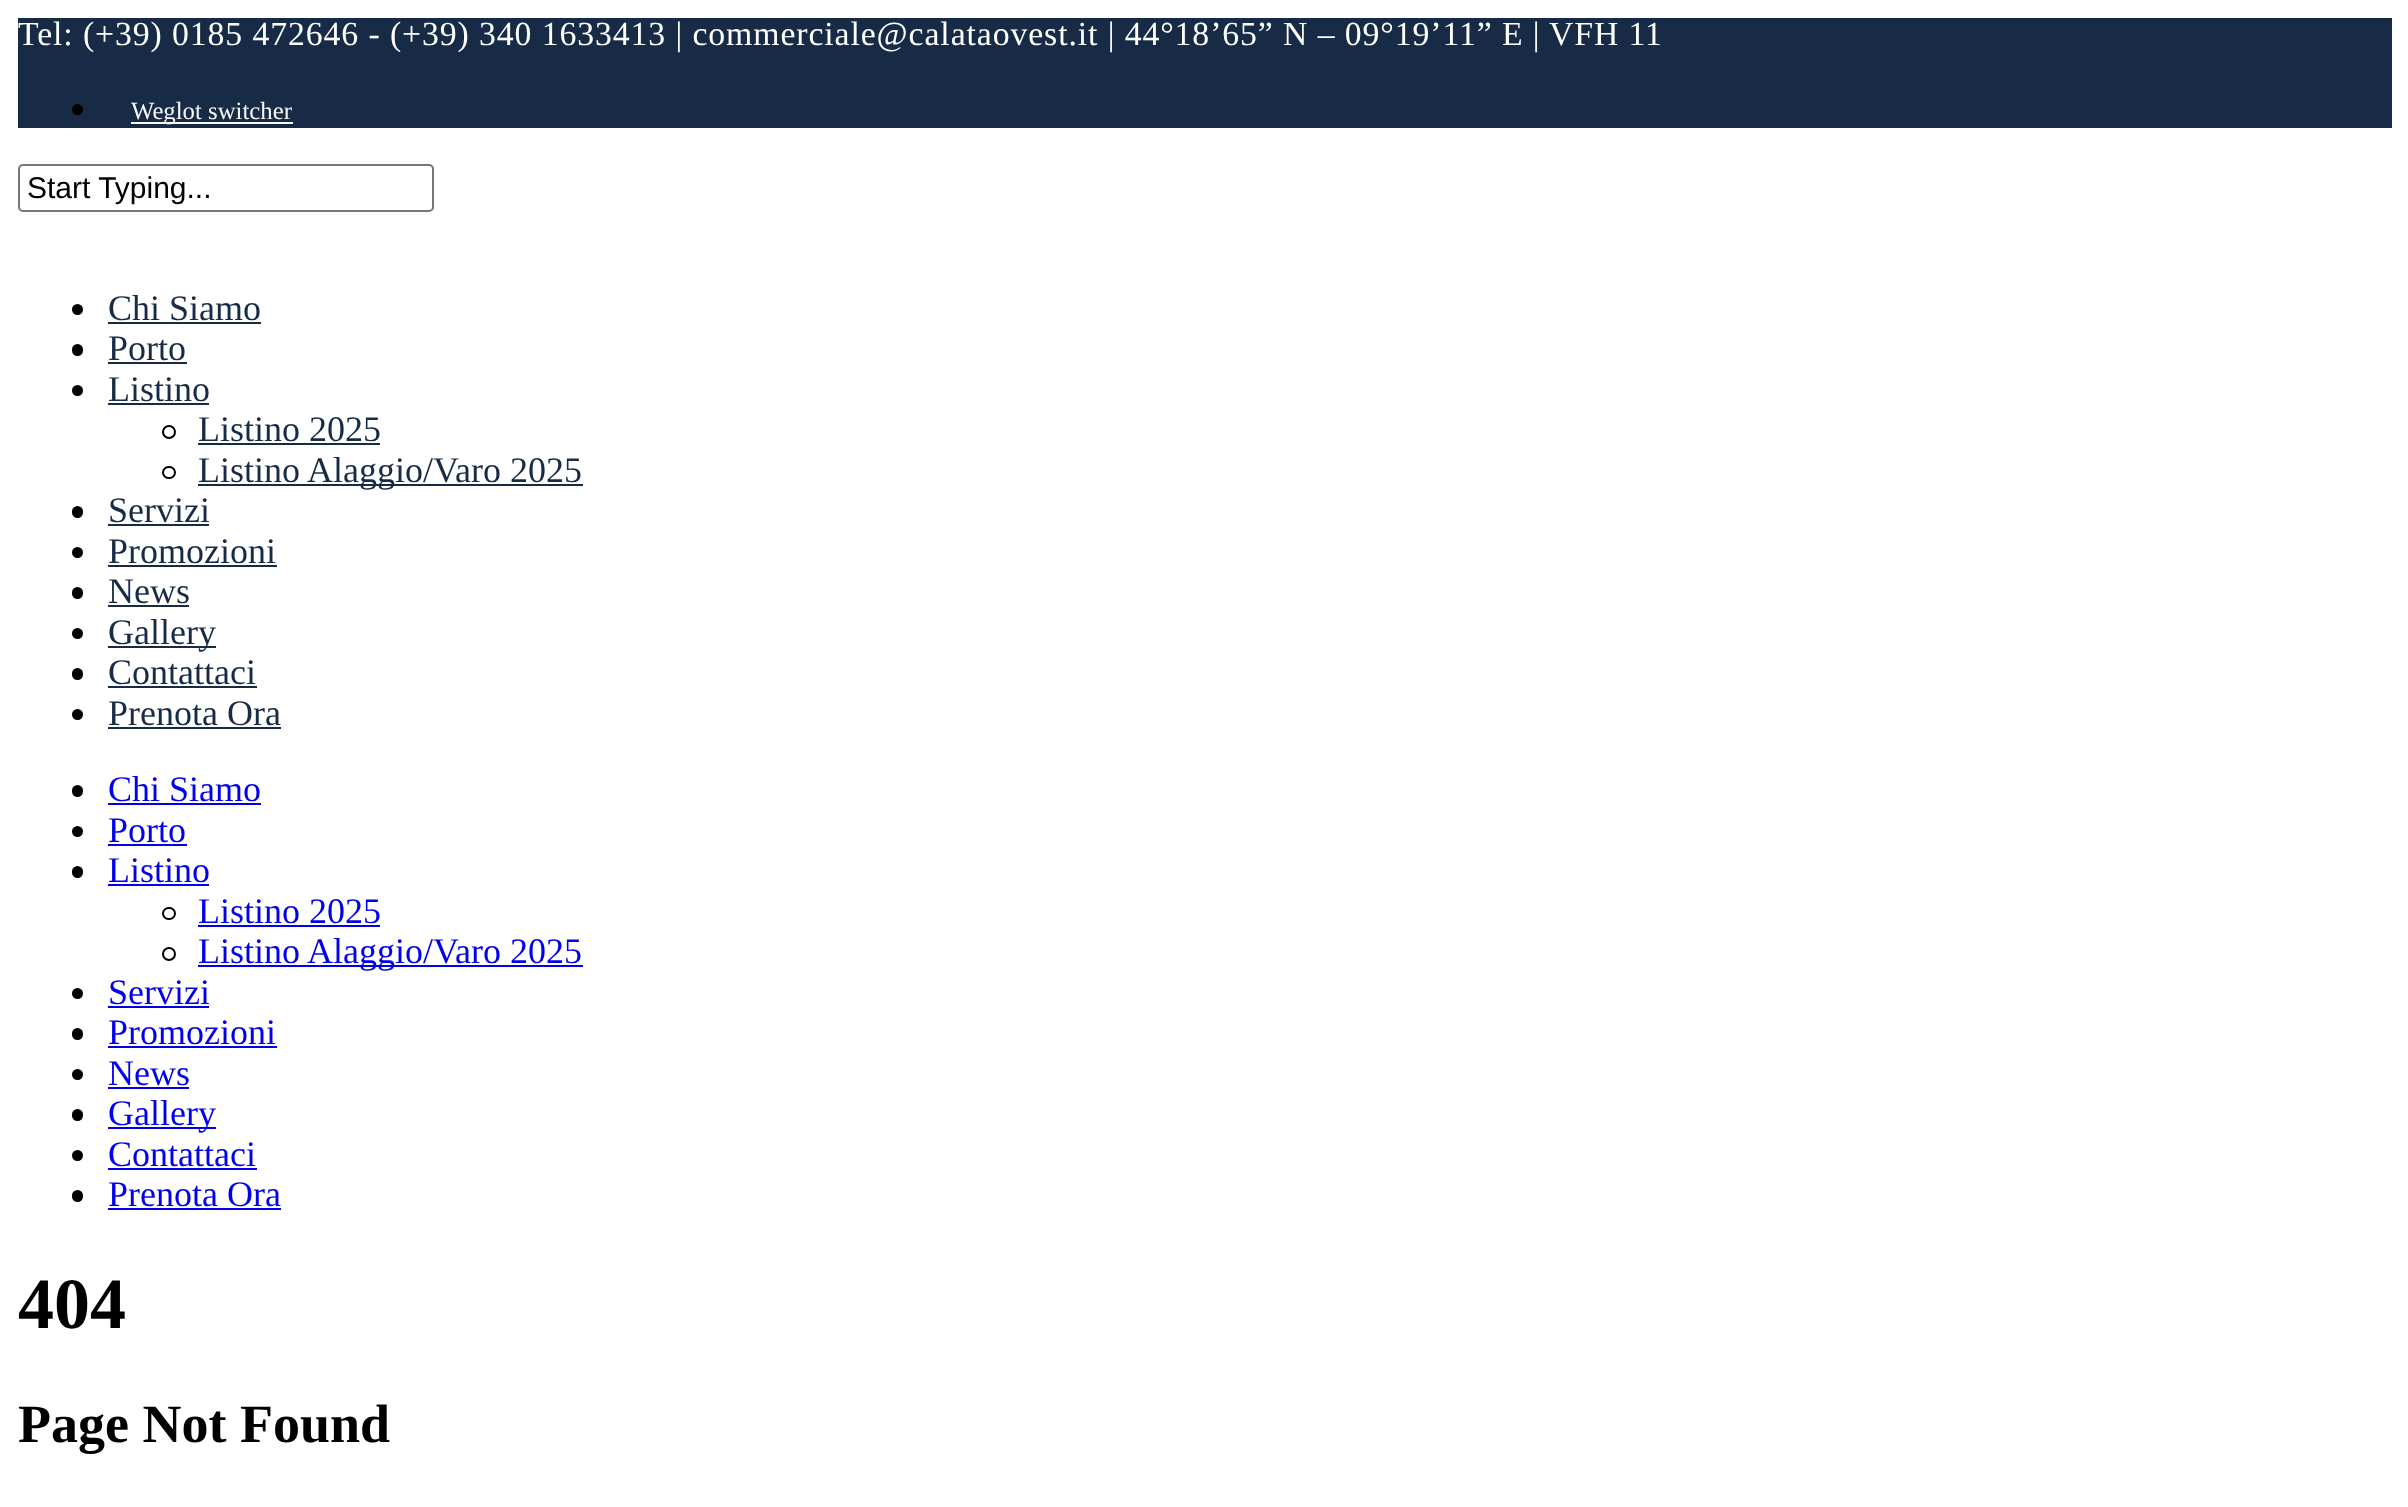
(async () => {
const canvas = document.querySelector("canvas")
canvas.width = 2408
canvas.height = 1507
const c = canvas.getContext("2d")
c.miterLimit = 4
c.fontKerning = "normal"
function T(s,x,y){c.fillText(s,x,y)}
function R(x,y,w,h){c.fillRect(x,y,w,h)}
function Q(x,y,w,h,r){c.beginPath();c.roundRect(x,y,w,h,r);c.fill()}
c.fillStyle="#fff"
R(0,0,2408,1507)
c.fillStyle="#172b46"
R(18,18,2374,110)
c.letterSpacing="0.9px"
c.font="33.75px Liberation Serif"
c.fillStyle="#fff"
T("Tel: (+39) 0185 472646 - (+39) 340 1633413 | commerciale@calataovest.it | 44°18’65” N – 09°19’11” E |",18,45)
T("VFH 11",1549,45)
c.fillStyle="#000"
c.beginPath()
c.arc(77.5,109.5,5.5,0,7)
c.fill()
c.fillStyle="#f8f8f8"
R(131,122,162,2)
c.letterSpacing="0px"
c.font="24.75px Liberation Serif"
T("Weglot switcher",131,119)
c.beginPath()
c.roundRect(19,165,414,46,4)
c.strokeStyle="#767676"
c.lineWidth=2
c.stroke()
c.font="30px Liberation Sans"
c.fillStyle="#000"
T("Start Typing...",27,198)
c.beginPath()
c.arc(77.5,309.5,5.5,0,7)
c.fill()
c.font="36px Liberation Serif"
c.fillStyle="#172b46"
T("Chi Siamo",108,320)
R(108,322,153,2)
c.fillStyle="#000"
Q(72,344,11,12,5.5)
c.fillStyle="#172b46"
T("Porto",108,360)
R(108,362,79,2)
c.fillStyle="#000"
c.beginPath()
c.arc(77.5,390.5,5.5,0,7)
c.fill()
c.fillStyle="#172b46"
T("Listino",108,401)
R(108,403,101,2)
c.beginPath()
c.arc(169,432,6,0,7)
c.strokeStyle="#000"
c.stroke()
T("Listino 2025",198,441)
R(198,443,182,2)
c.beginPath()
c.roundRect(163,467,12,11,5.5)
c.stroke()
R(198,484,385,2)
T("Listino Alaggio/Varo 2025",198,482)
c.fillStyle="#000"
Q(72,506,11,12,5.5)
c.fillStyle="#172b46"
T("Servizi",108,522)
R(108,524,101,2)
c.fillStyle="#000"
c.beginPath()
c.arc(77.5,552.5,5.5,0,7)
c.fill()
c.fillStyle="#172b46"
T("Promozioni",108,563)
R(108,565,169,2)
c.fillStyle="#000"
Q(72,587,11,12,5.5)
c.fillStyle="#172b46"
T("News",108,603)
R(108,605,81,2)
c.fillStyle="#000"
c.beginPath()
c.arc(77.5,633.5,5.5,0,7)
c.fill()
c.fillStyle="#172b46"
R(108,646,108,2)
T("Gallery",108,644)
c.fillStyle="#000"
Q(72,668,11,12,5.5)
c.fillStyle="#172b46"
T("Contattaci",108,684)
R(108,686,149,2)
c.fillStyle="#000"
c.beginPath()
c.arc(77.5,714.5,5.5,0,7)
c.fill()
c.fillStyle="#172b46"
T("Prenota Ora",108,725)
R(108,727,173,2)
c.fillStyle="#000"
Q(72,785,11,12,5.5)
c.fillStyle="#00e"
T("Chi Siamo",108,801)
R(108,803,153,2)
c.fillStyle="#000"
c.beginPath()
c.arc(77.5,831.5,5.5,0,7)
c.fill()
c.fillStyle="#00e"
T("Porto",108,842)
R(108,844,79,2)
c.fillStyle="#000"
Q(72,866,11,12,5.5)
c.fillStyle="#00e"
T("Listino",108,882)
R(108,884,101,2)
c.beginPath()
c.roundRect(163,908,12,11,5.5)
c.stroke()
T("Listino 2025",198,923)
R(198,925,182,2)
c.beginPath()
c.arc(169,954,6,0,7)
c.stroke()
R(198,965,385,2)
T("Listino Alaggio/Varo 2025",198,963)
c.fillStyle="#000"
c.beginPath()
c.arc(77.5,993.5,5.5,0,7)
c.fill()
c.fillStyle="#00e"
T("Servizi",108,1004)
R(108,1006,101,2)
c.fillStyle="#000"
Q(72,1028,11,12,5.5)
c.fillStyle="#00e"
T("Promozioni",108,1044)
R(108,1046,169,2)
c.fillStyle="#000"
c.beginPath()
c.arc(77.5,1074.5,5.5,0,7)
c.fill()
c.fillStyle="#00e"
T("News",108,1085)
R(108,1087,81,2)
c.fillStyle="#000"
Q(72,1109,11,12,5.5)
c.fillStyle="#00e"
R(108,1127,108,2)
T("Gallery",108,1125)
c.fillStyle="#000"
c.beginPath()
c.arc(77.5,1155.5,5.5,0,7)
c.fill()
c.fillStyle="#00e"
T("Contattaci",108,1166)
R(108,1168,149,2)
c.fillStyle="#000"
Q(72,1190,11,12,5.5)
c.fillStyle="#00e"
T("Prenota Ora",108,1206)
R(108,1208,173,2)
c.font="bold 72px Liberation Serif"
c.fillStyle="#000"
T("404",18,1328)
c.font="bold 54px Liberation Serif"
T("Page Not Found",18,1442)
})()
